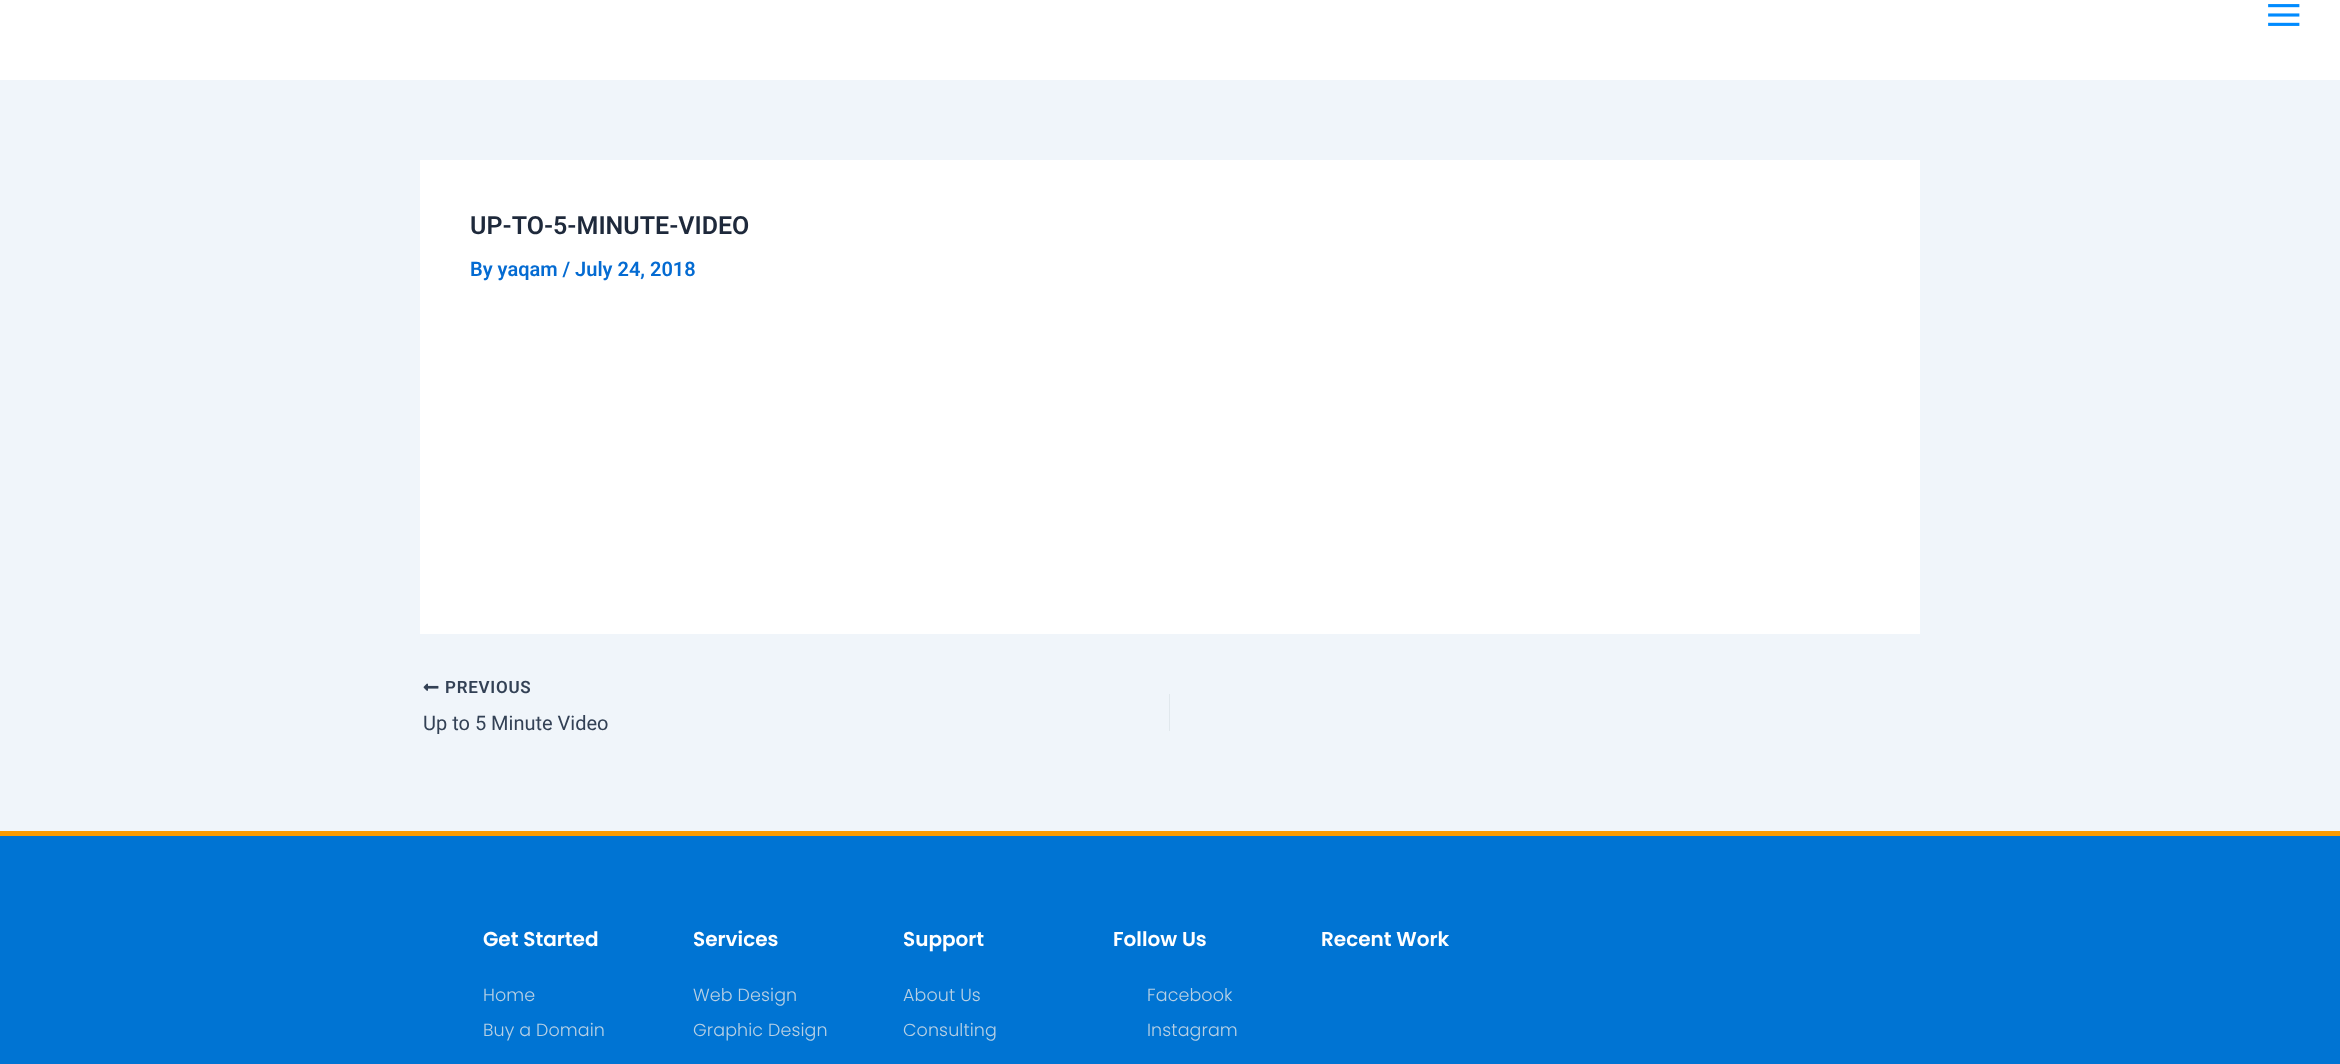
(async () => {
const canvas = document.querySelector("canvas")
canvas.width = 2340
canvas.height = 1064
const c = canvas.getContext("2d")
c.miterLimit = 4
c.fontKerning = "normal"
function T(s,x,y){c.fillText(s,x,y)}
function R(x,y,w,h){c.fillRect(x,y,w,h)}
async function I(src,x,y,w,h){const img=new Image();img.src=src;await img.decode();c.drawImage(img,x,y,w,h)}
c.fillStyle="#f0f5fa"
R(0,0,2340,1064)
c.fillStyle="#fff"
R(0,0,2340,80)
await I("1.png",2268,4,32,22)
R(420,160,1500,474)
c.font="600 25px Roboto"
c.fillStyle="#1e293b"
T("UP-TO-5-MINUTE-VIDEO",470,234)
c.font="600 20px Roboto"
c.fillStyle="#046bd2"
T("By yaqam / July 24, 2018",470,276)
await I("2.png",423,683,16,8)
c.letterSpacing="0.75px"
c.font="600 17px Roboto"
c.fillStyle="#334155"
T("PREVIOUS",445,693)
c.letterSpacing="0px"
c.font="20px Roboto"
T("Up to 5 Minute Video",423,730)
c.fillStyle="#e1e8ed"
R(1169,694,1,37)
c.fillStyle="#0074d3"
R(0,836,2340,228)
c.fillStyle="#fc9b00"
R(0,831,2340,5)
c.font="600 20px Poppins"
c.fillStyle="#fff"
T("Get Started",483,946)
c.letterSpacing="0.1px"
c.font="300 17.5px Poppins"
c.fillStyle="#b7d0e4"
T("Home",483,1001)
T("Buy a Domain",483,1036)
c.letterSpacing="0px"
c.font="600 20px Poppins"
c.fillStyle="#fff"
T("Services",693,946)
c.letterSpacing="0.1px"
c.font="300 17.5px Poppins"
c.fillStyle="#b7d0e4"
T("Web Design",693,1001)
T("Graphic Design",693,1036)
c.letterSpacing="0px"
c.font="600 20px Poppins"
c.fillStyle="#fff"
T("Support",903,946)
c.letterSpacing="0.1px"
c.font="300 17.5px Poppins"
c.fillStyle="#b7d0e4"
T("About Us",903,1001)
T("Consulting",903,1036)
c.letterSpacing="0px"
c.font="600 20px Poppins"
c.fillStyle="#fff"
T("Follow Us",1113,946)
c.letterSpacing="0.1px"
c.font="300 17.5px Poppins"
c.fillStyle="#b7d0e4"
T("Facebook",1147,1001)
T("Instagram",1147,1036)
c.letterSpacing="0px"
c.font="600 20px Poppins"
c.fillStyle="#fff"
T("Recent Work",1321,946)
})()
